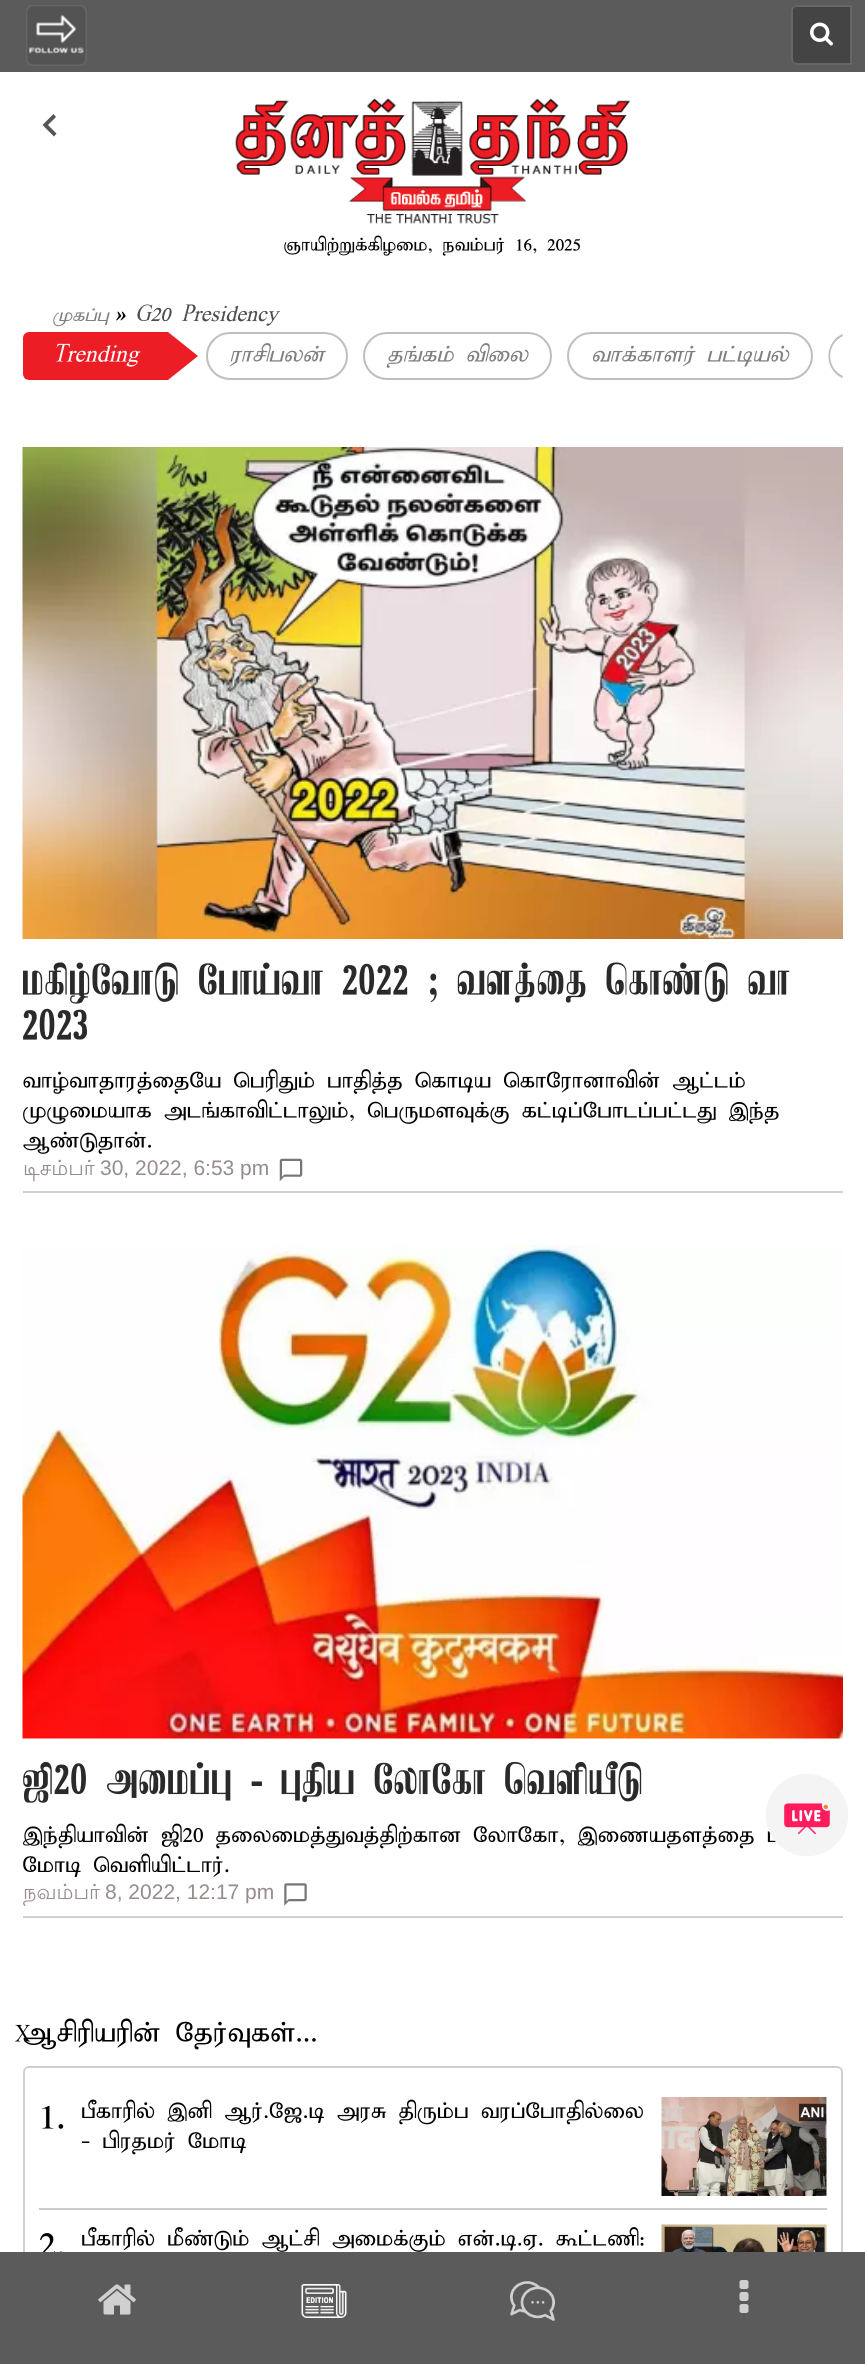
(async () => {
const canvas = document.querySelector("canvas")
canvas.width = 865
canvas.height = 2364
const c = canvas.getContext("2d")
c.miterLimit = 4
c.fontKerning = "normal"
function T(s,x,y){c.fillText(s,x,y)}
function R(x,y,w,h){c.fillRect(x,y,w,h)}
async function I(src,x,y,w,h){const img=new Image();img.src=src;await img.decode();c.drawImage(img,x,y,w,h)}
let path
c.fillStyle="#fff"
R(0,0,865,2364)
c.fillStyle="#5b5b5b"
R(0,0,865,72)
c.beginPath()
c.roundRect(27,6,59,59,5)
c.strokeStyle="#666"
c.lineWidth=2
c.stroke()
await I("1.png",27,6,59,59)
c.fillStyle="#444"
c.beginPath()
c.roundRect(792,6,59,58,[5,0,0,5])
c.fill()
c.stroke()
await I("2.png",810,22,23,24)
c.fillStyle="#555"
path = new Path2D("M56.5 133.5l-2.5 3l-11.5-11.5l11-11l2.5 3l-8 8z")
c.fill(path)
await I("3.png",235,98,395,126)
await I("4.png",284,235,296,21)
await I("21.png",23,1823,753,26)
await I("5.png",766,1774,82,82)
await I("6.png",53,308,57,19)
c.font="italic bold 22px Liberation Serif"
c.fillStyle="#000"
T("»",116,321)
await I("7.png",137,304,143,22)
c.fillStyle="#ec1d25"
c.beginPath()
c.roundRect(23,332,145,48,[6,0,0,6])
c.fill()
await I("8.png",56,343,85,24)
path = new Path2D("M168 380v-48l30 24z")
c.fill(path)
c.beginPath()
c.roundRect(207,333,140,46,23)
c.strokeStyle="#c0bebe"
c.stroke()
await I("9.png",229,343,97,24)
c.beginPath()
c.roundRect(364,333,187,46,23)
c.stroke()
await I("10.png",386,343,143,25)
c.beginPath()
c.roundRect(568,333,244,46,23)
c.stroke()
await I("11.png",592,345,198,22)
c.fillStyle="#c0bebe"
path = new Path2D("M842 334c-18 9-18 35 0 44l1-2c-17-8-17-32 0-40z")
c.fill(path)
c.fillStyle="#d4cfcf"
R(23,1191,820,2)
await I("12.png",22,447,821,492)
await I("13.png",23,962,767,42)
await I("14.png",23,1008,65,32)
await I("15.png",23,1069,722,25)
await I("16.png",23,1099,756,25)
await I("17.png",23,1131,128,23)
c.font="21px Lohit Tamil"
c.fillStyle="#988d8d"
T("டிசம்பர்",23,1175)
c.font="21px Liberation Sans"
T("30, 2022, 6:53 pm",100,1175)
await I("18.png",279,1158,24,24)
c.fillStyle="#d4cfcf"
R(23,1916,820,2)
await I("19.png",22,1245,821,494)
await I("20.png",23,1761,619,42)
await I("22.png",23,1853,206,24)
c.font="21px Lohit Tamil"
c.fillStyle="#988d8d"
T("நவம்பர்",23,1899)
c.font="21px Liberation Sans"
T("8, 2022, 12:17 pm",105,1899)
await I("23.png",284,1883,23,23)
await I("24.png",23,2018,293,32)
c.beginPath()
c.roundRect(24,2067,818,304,5)
c.strokeStyle="#cfcfcf"
c.stroke()
c.fillStyle="#ccc"
R(39,2208,788,2)
await I("25.png",42,2105,22,24)
await I("26.png",82,2099,561,26)
await I("27.png",661,2097,166,99)
await I("28.png",82,2129,164,26)
await I("29.png",40,2233,22,19)
await I("30.png",82,2227,562,25)
await I("31.png",661,2224,166,28)
c.fillStyle="#5b5b5b"
R(0,2252,865,112)
await I("32.png",98,2284,38,31)
await I("33.png",301,2284,46,34)
await I("34.png",510,2281,45,40)
await I("35.png",739,2280,10,33)
await I("36.png",15,2024,16,18)
})()
